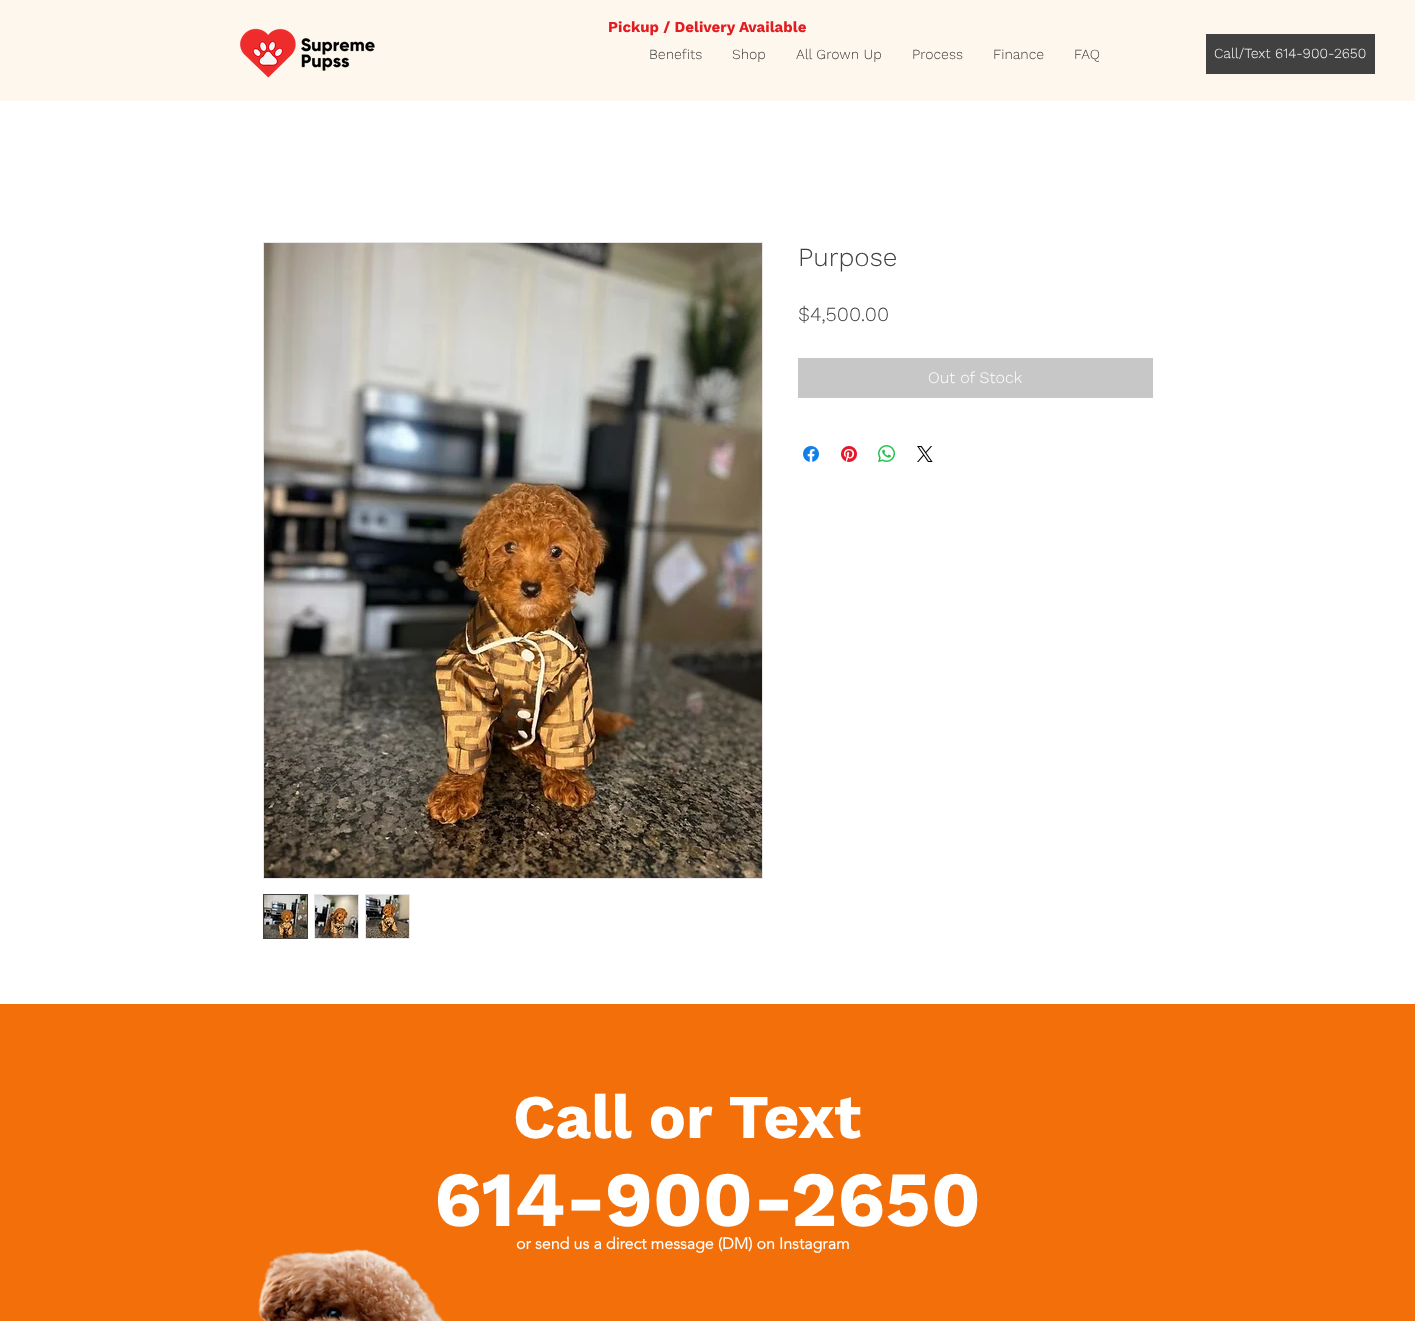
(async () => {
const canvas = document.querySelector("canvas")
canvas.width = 1415
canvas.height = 1321
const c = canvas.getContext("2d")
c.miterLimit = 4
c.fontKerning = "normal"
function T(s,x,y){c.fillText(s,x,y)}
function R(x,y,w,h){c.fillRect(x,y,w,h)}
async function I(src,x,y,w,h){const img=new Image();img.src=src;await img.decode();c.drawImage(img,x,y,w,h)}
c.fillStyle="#fff"
R(0,0,1415,1321)
c.fillStyle="#fef7ed"
R(0,0,1415,101)
await I("1.png",240,28,135,50)
c.font="bold 15px Work Sans"
c.fillStyle="#e21c21"
T("Pickup / Delivery Available",608,32)
c.font="300 14px Work Sans"
c.fillStyle="#414141"
T("Benefits",649,59)
T("Shop",732,59)
T("All Grown Up",796,59)
T("Process",912,59)
T("Finance",993,59)
T("FAQ",1074,59)
R(1206,34,169,40)
c.fillStyle="#fff"
T("Call/Text 614-900-2650",1214,58)
c.strokeStyle="#e8e6e6"
c.strokeRect(263.5,242.5,499,636)
await I("2.png",264,243,498,635)
c.strokeStyle="#414141"
c.strokeRect(263.5,894.5,44,44)
await I("3.png",264,895,43,43)
c.fillStyle="#e8e6e6"
R(314,894,45,45)
await I("4.png",315,895,43,43)
R(365,894,45,45)
await I("5.png",366,895,43,43)
c.font="300 26px Work Sans"
c.fillStyle="#414141"
T("Purpose",798,266)
c.font="300 20px Work Sans"
T("$4,500.00",798,321)
c.fillStyle="#c7c7c7"
R(798,358,355,40)
c.font="300 16px Work Sans"
c.fillStyle="#fff"
T("Out of Stock",928,383)
await I("6.png",803,446,16,16)
await I("7.png",841,446,16,16)
await I("8.png",878,445,17,17)
await I("9.png",917,446,16,16)
c.fillStyle="#f26f0a"
R(0,1004,1415,317)
c.font="bold 62px Work Sans"
c.fillStyle="#fff"
T("Call or Text",513,1138)
c.font="bold 78px Work Sans"
T("614-900-2650",434,1226)
c.font="bold 16px 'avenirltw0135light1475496'"
T("or send us a direct message (DM) on Instagram",516,1249)
await I("10.png",258,1249,187,72)
})()
